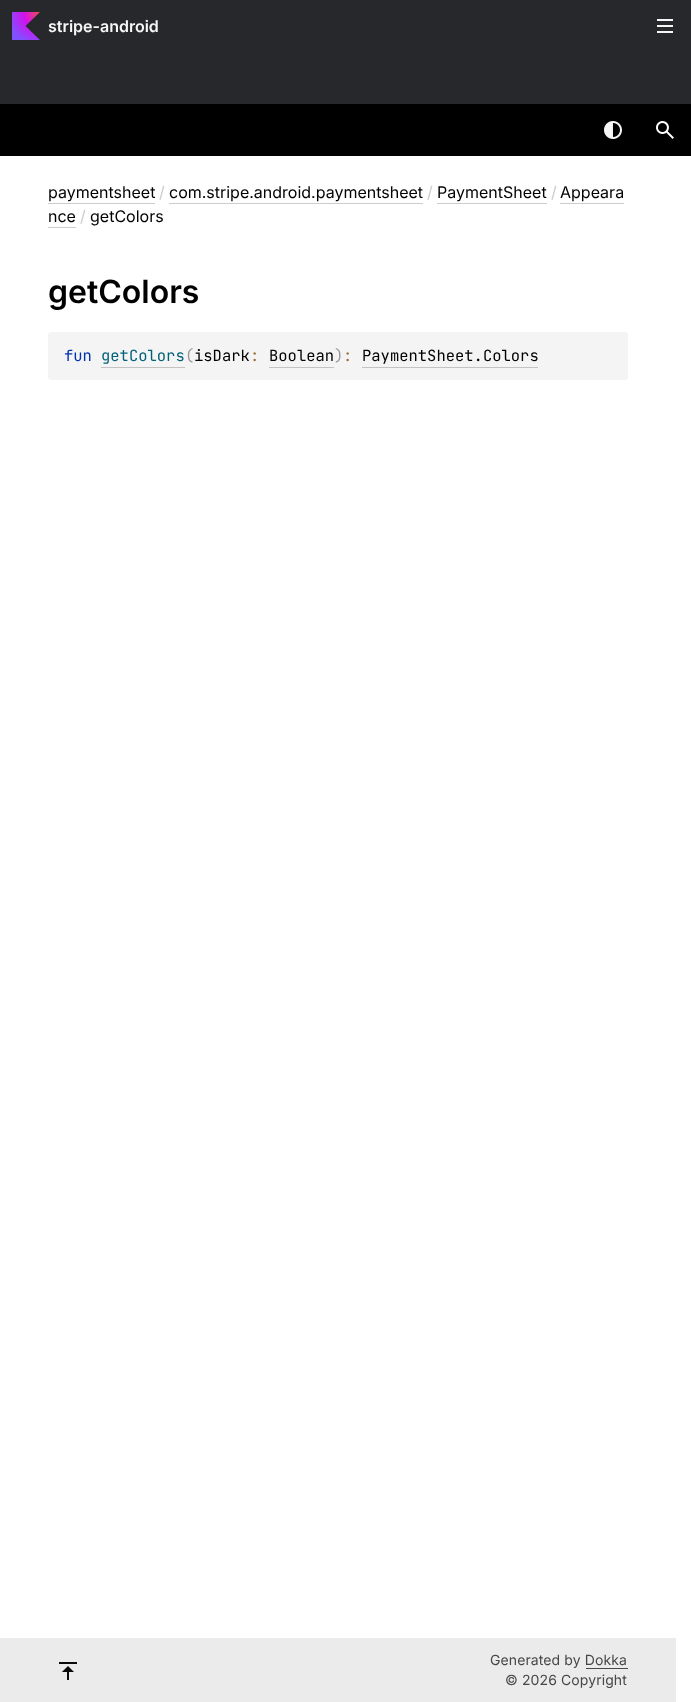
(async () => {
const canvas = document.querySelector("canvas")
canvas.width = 691
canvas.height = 1702
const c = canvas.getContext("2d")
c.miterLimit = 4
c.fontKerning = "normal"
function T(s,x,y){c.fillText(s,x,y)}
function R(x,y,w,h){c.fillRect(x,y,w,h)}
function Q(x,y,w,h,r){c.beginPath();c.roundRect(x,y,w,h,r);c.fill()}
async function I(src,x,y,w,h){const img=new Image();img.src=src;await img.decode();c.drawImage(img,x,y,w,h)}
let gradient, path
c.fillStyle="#fff"
R(0,0,691,1702)
c.fillStyle="#27282c"
R(0,0,691,104)
gradient = c.createRadialGradient(39,13,0,39,13,32)
gradient.addColorStop(0,"#ef4857")
gradient.addColorStop(.47,"#d211ec")
gradient.addColorStop(1,"#7f52ff")
c.fillStyle = gradient
path = new Path2D("M40 40h-28v-28h28l-14.5 14z")
c.fill(path)
c.font="600 16px Inter"
c.fillStyle="#f6f6f7"
T("stripe-android",48,32)
R(657,19,16,2)
R(657,25,16,2)
R(657,31,16,2)
c.fillStyle="#000"
R(0,104,691,52)
await I("1.png",604,121,18,18)
await I("2.png",656,121,18,18)
c.font="16px Inter"
T("paymentsheet",48,198)
c.fillStyle="#ccc"
R(48,203,107,1)
T("/",159,198)
c.fillStyle="#000"
T("com.stripe.android.paymentsheet",169,198)
c.fillStyle="#ccc"
R(169,203,254,1)
T("/",427,198)
c.fillStyle="#000"
T("PaymentSheet",437,198)
c.fillStyle="#ccc"
R(437,203,110,1)
T("/",551,198)
c.fillStyle="#000"
T("Appeara",560,198)
c.fillStyle="#ccc"
R(560,203,64,1)
c.fillStyle="#000"
T("nce",48,222)
c.fillStyle="#ccc"
R(48,227,28,1)
T("/",80,222)
c.fillStyle="#000"
T("getColors",90,222)
c.font="600 32px Inter"
T("getColors",48,303)
c.fillStyle="#f4f4f4"
Q(48,332,580,48,4)
c.font="15.5px JetBrains Mono"
c.fillStyle="#0033b3"
T("fun",64,361)
c.fillStyle="#00627a"
T("getColors",101,361)
c.fillStyle="#c3c3c3"
R(101,367,84,1)
c.fillStyle="#999"
T("(",185,361)
c.fillStyle="#000"
T("isDark",194,361)
c.fillStyle="#9a6e3a"
T(":",250,361)
c.fillStyle="#000"
T("Boolean",269,361)
c.fillStyle="#c3c3c3"
R(269,367,65,1)
c.fillStyle="#999"
T(")",334,361)
c.fillStyle="#9a6e3a"
T(":",343,361)
c.fillStyle="#000"
T("PaymentSheet.Colors",362,361)
c.fillStyle="#c3c3c3"
R(362,367,176,1)
c.fillStyle="#ebebeb"
R(0,1638,676,64)
await I("3.png",59,1662,18,18)
c.letterSpacing="0.1px"
c.font="14px Inter"
c.fillStyle="#474747"
T("Generated by Dokka",490,1665)
R(586,1668,42,1)
T("© 2026 Copyright",505,1685)
})()
